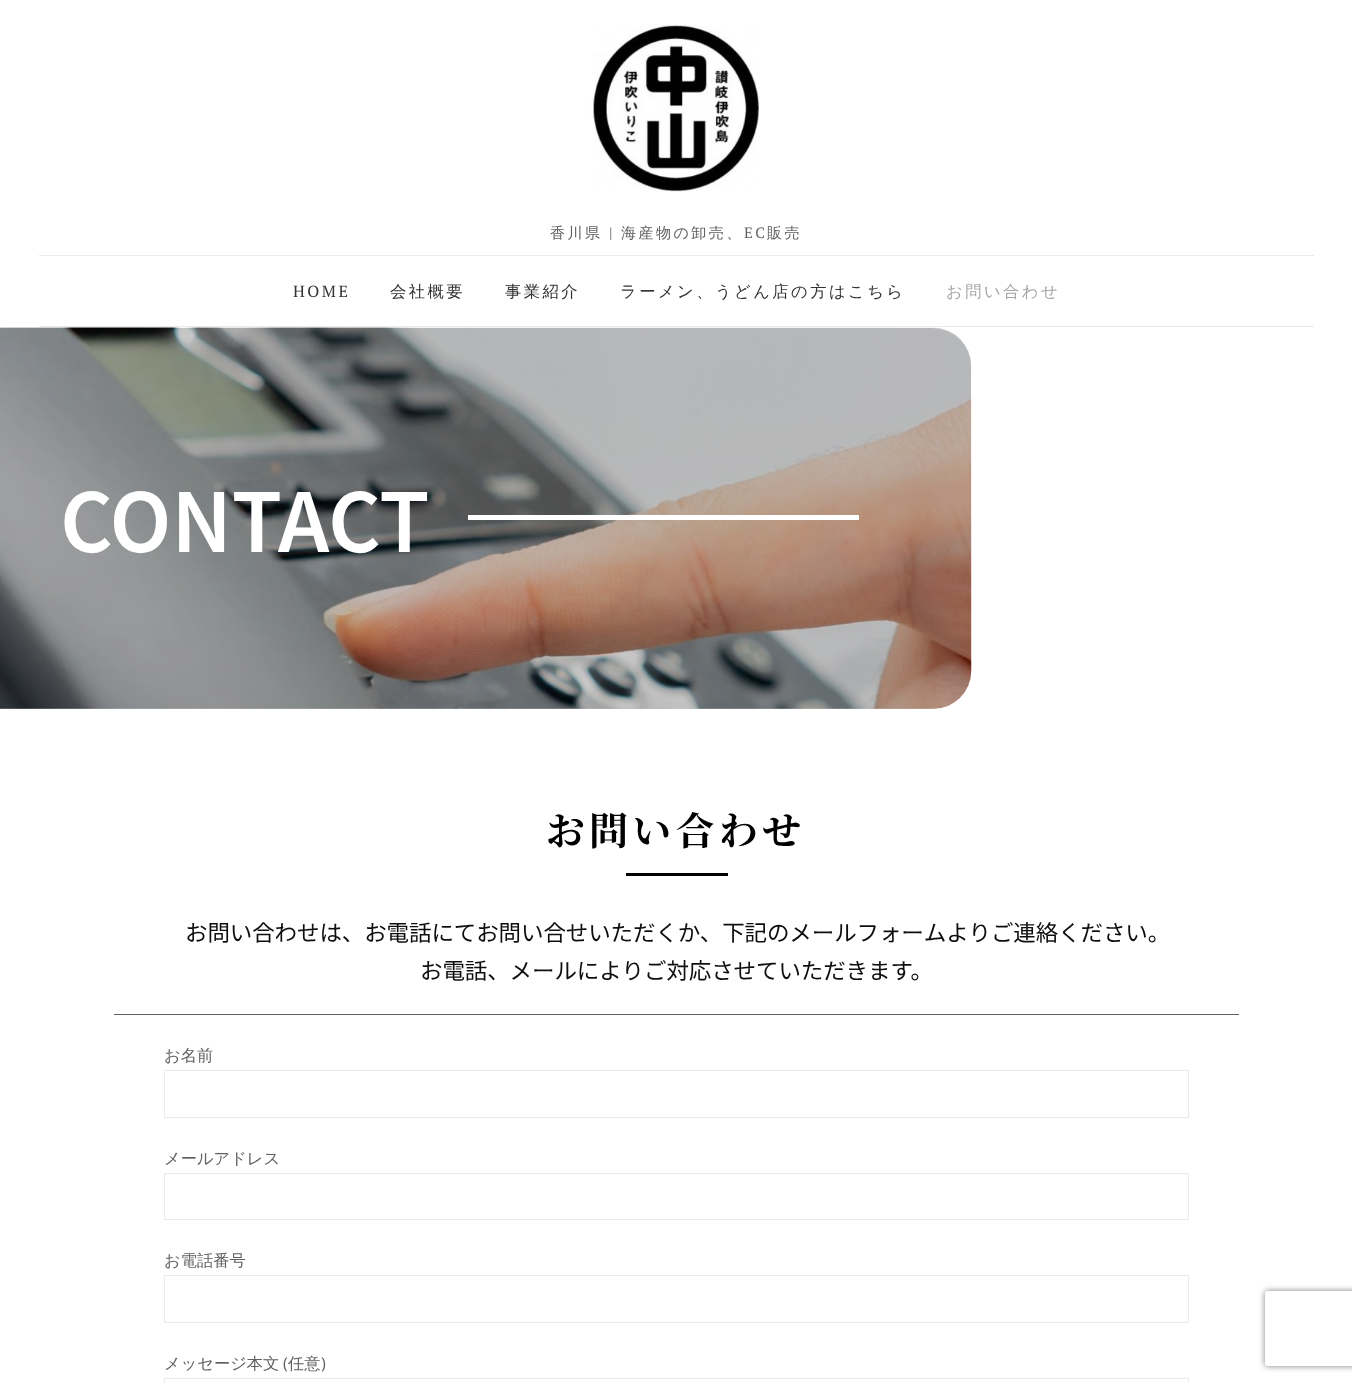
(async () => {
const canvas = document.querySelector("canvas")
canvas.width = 1352
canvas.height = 1383
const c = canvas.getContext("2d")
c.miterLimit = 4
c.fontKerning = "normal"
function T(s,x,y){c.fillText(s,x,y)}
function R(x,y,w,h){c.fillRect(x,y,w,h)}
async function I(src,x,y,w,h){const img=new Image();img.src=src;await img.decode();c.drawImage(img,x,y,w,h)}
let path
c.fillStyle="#fff"
R(0,0,1352,1383)
await I("1.png",591,24,169,168)
c.letterSpacing="2.5px"
c.font="500 15px WenQuanYi Zen Hei"
c.fillStyle="#606060"
T("香川県",550,238)
c.font="15px PT Serif"
T("|",609,238)
c.font="500 15px WenQuanYi Zen Hei"
T("海産物の卸売、",621,238)
c.font="15px PT Serif"
T("EC",744,238)
c.font="500 15px WenQuanYi Zen Hei"
T("販売",767,238)
c.fillStyle="#eaeaea"
R(39,255,1275,1)
R(39,326,1275,1)
c.font="16.25px PT Serif"
c.fillStyle="#333"
T("HOME",293,297)
c.font="500 16.25px WenQuanYi Zen Hei"
T("会社概要",390,297)
T("事業紹介",505,297)
T("ラーメン、うどん店の方はこちら",620,297)
c.fillStyle="#a5a5a5"
T("お問い合わせ",946,297)
await I("2.png",0,327,972,382)
c.fillStyle="#00000036"
c.beginPath()
c.roundRect(0,328,971,381,[0,38,38,0])
c.fill()
c.letterSpacing="0px"
c.font="600 81.25px Noto Sans JP"
c.fillStyle="#fff"
T("CONTACT",60,552)
R(468,515,391,5)
c.letterSpacing="4.5px"
c.font="bold 38.75px Noto Serif JP"
c.fillStyle="#000"
T("お問い合わせ",546,845)
R(626,873,102,3)
c.fillStyle="#606060"
R(114,1014,1125,1)
c.letterSpacing="-0.1px"
c.font="22.5px Noto Sans JP"
c.fillStyle="#0e0e0e"
T("お問い合わせは、お電話にてお問い合せいただくか、下記のメールフォームよりご連絡ください。",185,941)
T("お電話、メールによりご対応させていただきます。",420,979)
c.letterSpacing="0px"
c.font="500 16.25px WenQuanYi Zen Hei"
c.fillStyle="#606060"
T("お名前",164,1061)
c.strokeStyle="#eaeaea"
c.strokeRect(164.5,1070.5,1024,47)
T("メールアドレス",164,1164)
c.strokeRect(164.5,1173.5,1024,46)
T("お電話番号",164,1266)
c.strokeRect(164.5,1275.5,1024,47)
T("メッセージ本文",164,1369)
c.font="16.25px Open Sans"
T("(",283,1369)
c.font="500 16.25px WenQuanYi Zen Hei"
T("任意",288,1369)
c.font="16.25px Open Sans"
T(")",321,1369)
c.strokeRect(164.5,1378.5,1024,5)
c.save()
path = new Path2D("M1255 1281h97v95h-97zm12.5 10h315c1.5 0 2.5 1 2.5 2.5v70c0 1.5-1 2.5-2.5 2.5h-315c-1.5 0-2.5-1-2.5-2.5v-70c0-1.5 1-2.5 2.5-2.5z")
c.clip(path,"evenodd")
c.fillStyle="#808080"
c.filter="blur(3px)"
c.beginPath()
c.roundRect(1265,1291,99,75,2.5)
c.fill()
c.filter="none"
c.restore()
})()
